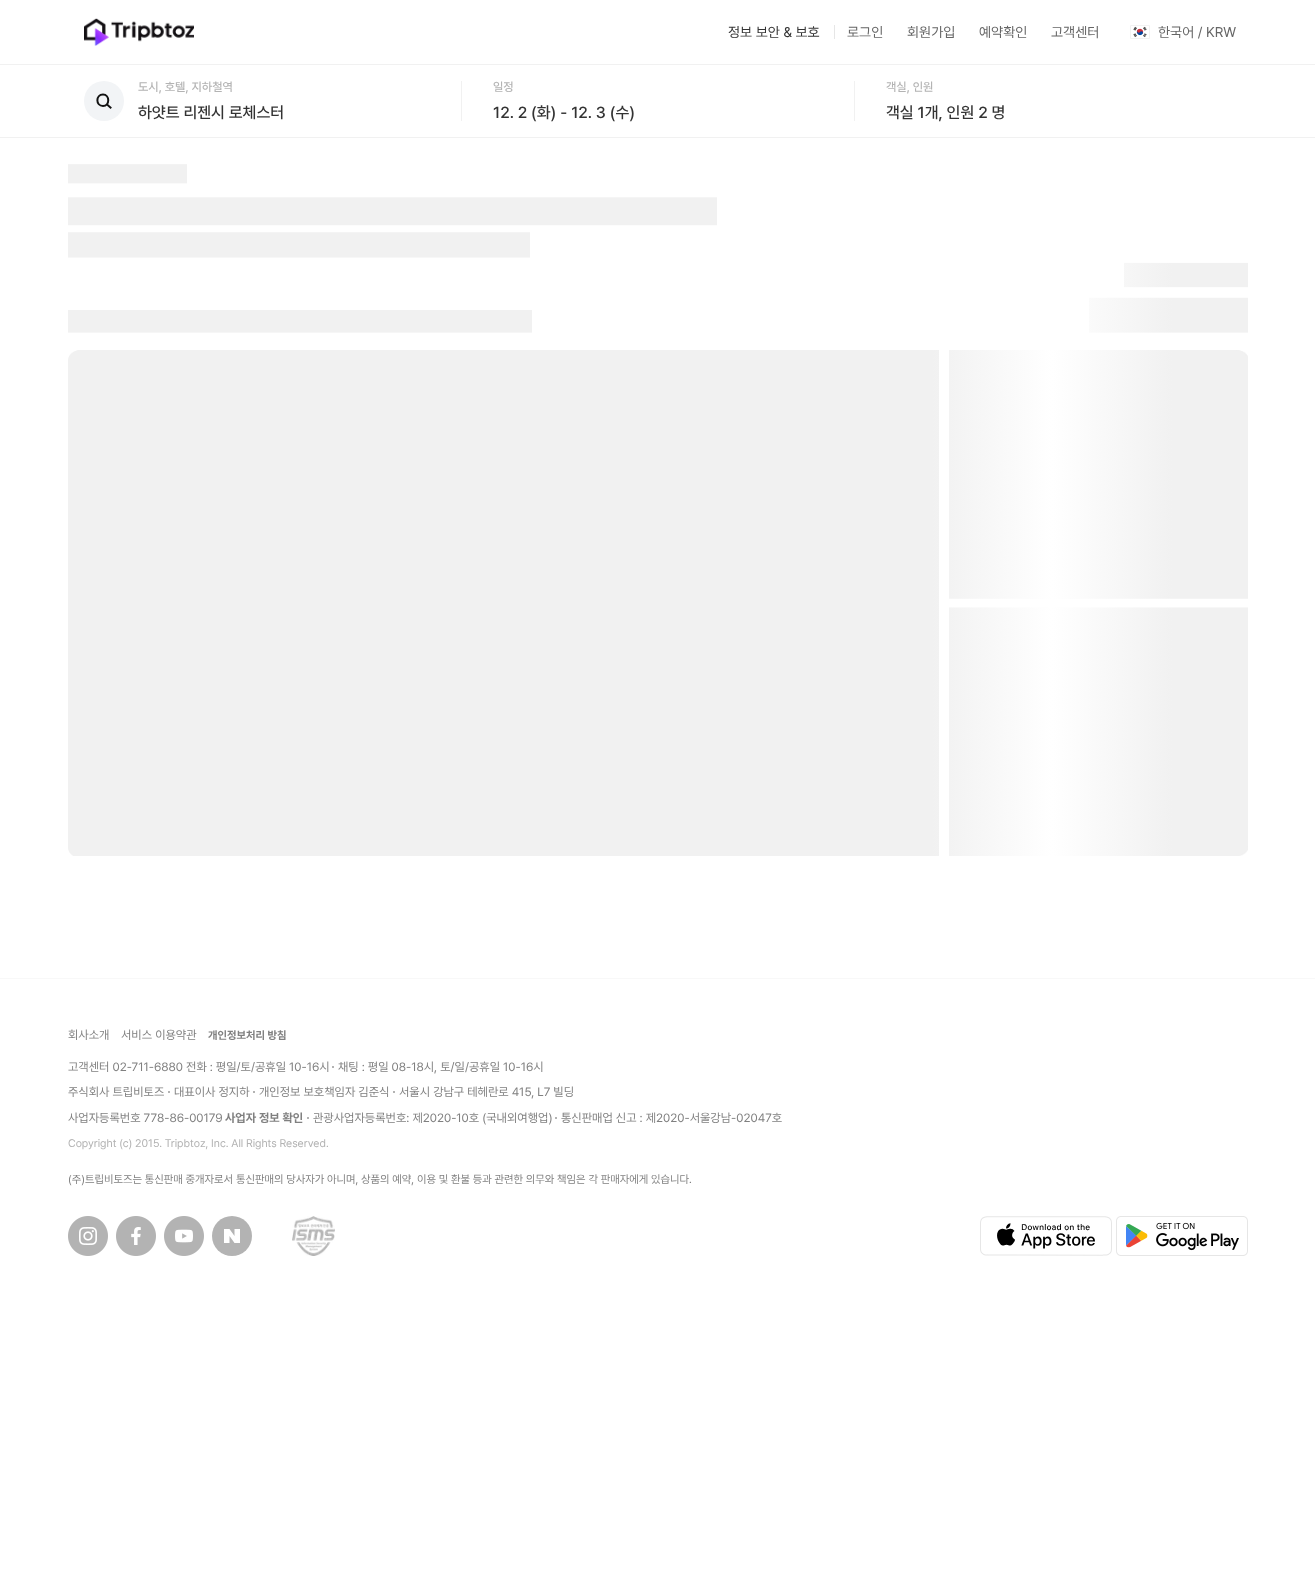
(async () => {
const canvas = document.querySelector("canvas")
canvas.width = 1315
canvas.height = 1573
const c = canvas.getContext("2d")
c.miterLimit = 4
c.fontKerning = "normal"
function T(s,x,y){c.fillText(s,x,y)}
function R(x,y,w,h){c.fillRect(x,y,w,h)}
async function I(src,x,y,w,h){const img=new Image();img.src=src;await img.decode();c.drawImage(img,x,y,w,h)}
let gradient, path
c.fillStyle="#fff"
R(0,0,1315,1573)
await I("1.png",84,18,110,28)
c.font="14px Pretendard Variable"
c.fillStyle="#333"
T("정보 보안 & 보호",728,37)
c.fillStyle="#e6e6e6"
R(834,25,1,14)
c.fillStyle="#666"
T("로그인",847,37)
T("회원가입",907,37)
T("예약확인",979,37)
T("고객센터",1051,37)
await I("2.png",1130,25,20,14)
T("한국어 / KRW",1158,37)
c.fillStyle="#f1f1f1"
R(0,64,1315,1)
R(0,137,1315,1)
c.fillStyle="#f2f4f6"
c.beginPath()
c.arc(104,101,20,0,7)
c.fill()
path = new Path2D("M103 94.5c7 0 7 11.5 0 11.5c-7.5 0-7.5-11.5 0-11.5zm4 10l3.5 3")
c.strokeStyle="#121212"
c.lineWidth=2
c.lineCap="square"
c.lineJoin="round"
c.stroke(path)
c.font="500 12px Pretendard Variable"
c.fillStyle="#b3b3b3"
T("도시, 호텔, 지하철역",138,91)
c.font="500 16px Pretendard Variable"
c.fillStyle="#333"
T("하얏트 리젠시 로체스터",138,118)
c.fillStyle="#f1f1f1"
R(461,81,1,40)
c.font="500 12px Pretendard Variable"
c.fillStyle="#b3b3b3"
T("일정",493,91)
c.fillStyle="#f1f1f1"
R(854,81,1,40)
c.font="500 16px Pretendard Variable"
c.fillStyle="#333"
T("12. 2 (화) - 12. 3 (수)",493,118)
c.font="500 12px Pretendard Variable"
c.fillStyle="#b3b3b3"
T("객실, 인원",886,91)
c.font="500 16px Pretendard Variable"
c.fillStyle="#333"
T("객실 1개, 인원 2 명",886,118)
c.fillStyle="#f1f1f1"
R(68,164,864,693)
gradient = c.createLinearGradient(932,518,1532,518)
gradient.addColorStop(0,"#f1f1f1")
gradient.addColorStop(.2,"#fff")
gradient.addColorStop(.4,"#f1f1f1")
gradient.addColorStop(1,"#f1f1f1")
c.fillStyle = gradient
R(932,262,316,595)
await I("3.png",68,138,1180,760)
c.fillStyle="#f8f8f8"
R(0,978,1315,1)
c.font="12px Pretendard Variable"
c.fillStyle="#808080"
T("회사소개",68,1039)
T("서비스 이용약관",121,1039)
c.font="bold 11px Pretendard Variable"
T("개인정보처리 방침",208,1039)
c.font="12px Pretendard Variable"
T("고객센터 02-711-6880 전화 : 평일/토/공휴일 10-16시",68,1071)
c.fillStyle="#b3b3b3"
R(332,1066,2,2)
c.fillStyle="#808080"
T("채팅 : 평일 08-18시, 토/일/공휴일 10-16시",338,1071)
T("주식회사 트립비토즈",68,1096)
c.fillStyle="#b3b3b3"
R(168,1091,2,2)
c.fillStyle="#808080"
T("대표이사 정지하",174,1096)
c.fillStyle="#b3b3b3"
R(253,1091,2,2)
c.fillStyle="#808080"
T("개인정보 보호책임자 김준식",259,1096)
c.fillStyle="#b3b3b3"
R(393,1091,2,2)
c.fillStyle="#808080"
T("서울시 강남구 테헤란로 415, L7 빌딩",399,1096)
T("사업자등록번호 778-86-00179",68,1122)
c.font="bold 12px Pretendard Variable"
T("사업자 정보 확인",225,1122)
c.fillStyle="#b3b3b3"
R(307,1117,2,2)
c.font="12px Pretendard Variable"
c.fillStyle="#808080"
T("관광사업자등록번호: 제2020-10호 (국내외여행업)",313,1122)
c.fillStyle="#b3b3b3"
R(555,1117,2,2)
c.fillStyle="#808080"
T("통신판매업 신고 : 제2020-서울강남-02047호",561,1122)
c.font="11px Pretendard Variable"
c.fillStyle="#b3b3b3"
T("Copyright (c) 2015. Tripbtoz, Inc. All Rights Reserved.",68,1147)
c.fillStyle="#808080"
T("(주)트립비토즈는 통신판매 중개자로서 통신판매의 당사자가 아니며, 상품의 예약, 이용 및 환불 등과 관련한 의무와 책임은 각 판매자에게 있습니다.",68,1183)
await I("4.png",68,1216,40,40)
await I("5.png",116,1216,40,40)
await I("6.png",164,1216,40,40)
c.fillStyle="#b3b3b3"
c.beginPath()
c.arc(232,1236,20,0,7)
c.fill()
c.fillStyle="#fff"
path = new Path2D("M224 1229v14h5.5v-7l5 7h5.5v-14h-5.5v7l-5-7z")
c.fill(path)
await I("7.png",292,1216,43,40)
await I("8.png",980,1216,132,40)
await I("9.png",1116,1216,132,40)
})()
